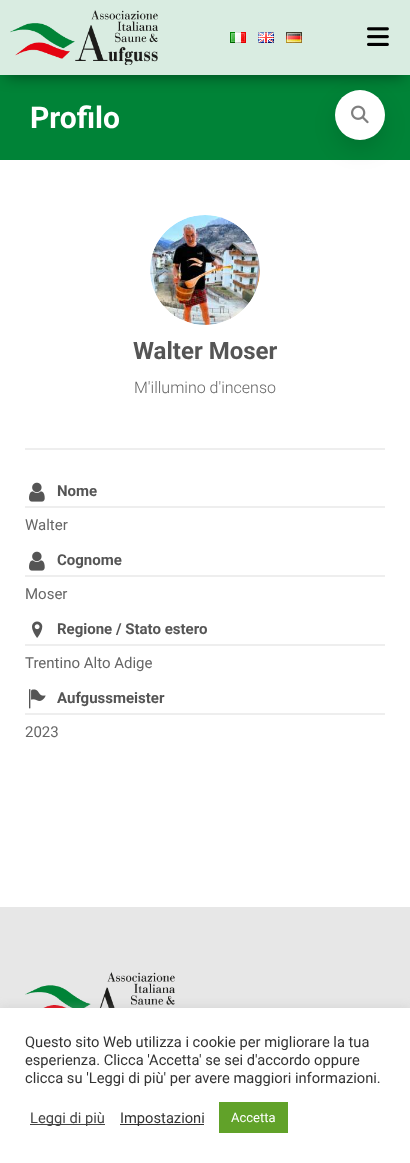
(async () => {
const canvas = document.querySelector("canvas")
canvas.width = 410
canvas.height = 1163
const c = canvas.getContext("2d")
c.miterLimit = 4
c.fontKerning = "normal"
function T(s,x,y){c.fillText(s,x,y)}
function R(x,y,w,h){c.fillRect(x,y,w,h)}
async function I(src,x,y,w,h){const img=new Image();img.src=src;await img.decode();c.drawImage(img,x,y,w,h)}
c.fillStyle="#fff"
R(0,0,410,1163)
c.fillStyle="#008337"
R(0,75,410,85)
c.fillStyle="#00000073"
c.filter="blur(7.5px)"
c.beginPath()
c.rect(6,13,398,63)
c.fill()
c.filter="none"
c.fillStyle="#d9ece1"
R(0,0,410,75)
await I("1.png",10,10,148,55)
await I("2.png",230,32,16,11)
await I("3.png",258,32,16,11)
await I("4.png",286,32,16,11)
await I("5.png",367,27,22,19)
c.fillStyle="#00000029"
c.filter="blur(12px)"
c.beginPath()
c.roundRect(338,103,44,44,22)
c.fill()
c.filter="none"
c.fillStyle="#fff"
c.beginPath()
c.arc(360,115,25,0,7)
c.fill()
await I("6.png",351,105,18,19)
c.font="bold 30px Roboto"
T("Profilo",30,128)
c.fillStyle="#eee"
R(25,448,360,2)
await I("7.png",150,215,110,110)
c.font="bold 24px Roboto"
c.fillStyle="#555"
T("Walter Moser",133,359)
c.font="300 16px Roboto"
c.fillStyle="#666"
T("M'illumino d'incenso",134,393)
c.fillStyle="#eee"
R(25,506,360,2)
await I("8.png",29,482,16,20)
c.font="bold 15px Roboto"
c.fillStyle="#555"
T("Nome",57,496)
c.font="15px Roboto"
c.fillStyle="#666"
T("Walter",25,530)
c.fillStyle="#eee"
R(25,575,360,2)
await I("8.png",29,551,16,20)
c.font="bold 15px Roboto"
c.fillStyle="#555"
T("Cognome",57,565)
c.font="15px Roboto"
c.fillStyle="#666"
T("Moser",25,599)
c.fillStyle="#eee"
R(25,644,360,2)
await I("9.png",32,621,11,17)
c.font="bold 15px Roboto"
c.fillStyle="#555"
T("Regione / Stato estero",57,634)
c.font="15px Roboto"
c.fillStyle="#666"
T("Trentino Alto Adige",25,668)
c.fillStyle="#eee"
R(25,713,360,2)
await I("10.png",29,689,17,20)
c.font="bold 15px Roboto"
c.fillStyle="#555"
T("Aufgussmeister",57,703)
c.font="15px Roboto"
c.fillStyle="#666"
T("2023",25,737)
c.fillStyle="#e7e7e7"
R(0,907,410,101)
await I("11.png",25,972,150,36)
c.fillStyle="#acabab4d"
c.filter="blur(5px)"
c.beginPath()
c.rect(0,1007,410,155)
c.fill()
c.filter="none"
c.fillStyle="#fff"
R(0,1008,410,155)
c.font="14.7px Roboto"
c.fillStyle="#333"
T("Questo sito Web utilizza i cookie per migliorare la tua",25,1047)
T("esperienza. Clicca 'Accetta' se sei d'accordo oppure",25,1065)
T("clicca su 'Leggi di più' per avere maggiori informazioni.",25,1083)
c.fillStyle="#444"
R(30,1124,75,1)
T("Leggi di più",30,1123)
c.fillStyle="#333"
R(120,1124,84,1)
T("Impostazioni",120,1123)
c.fillStyle="#61a229"
R(219,1102,69,31)
c.font="13px Roboto"
c.fillStyle="#fff"
T("Accetta",231,1122)
})()
